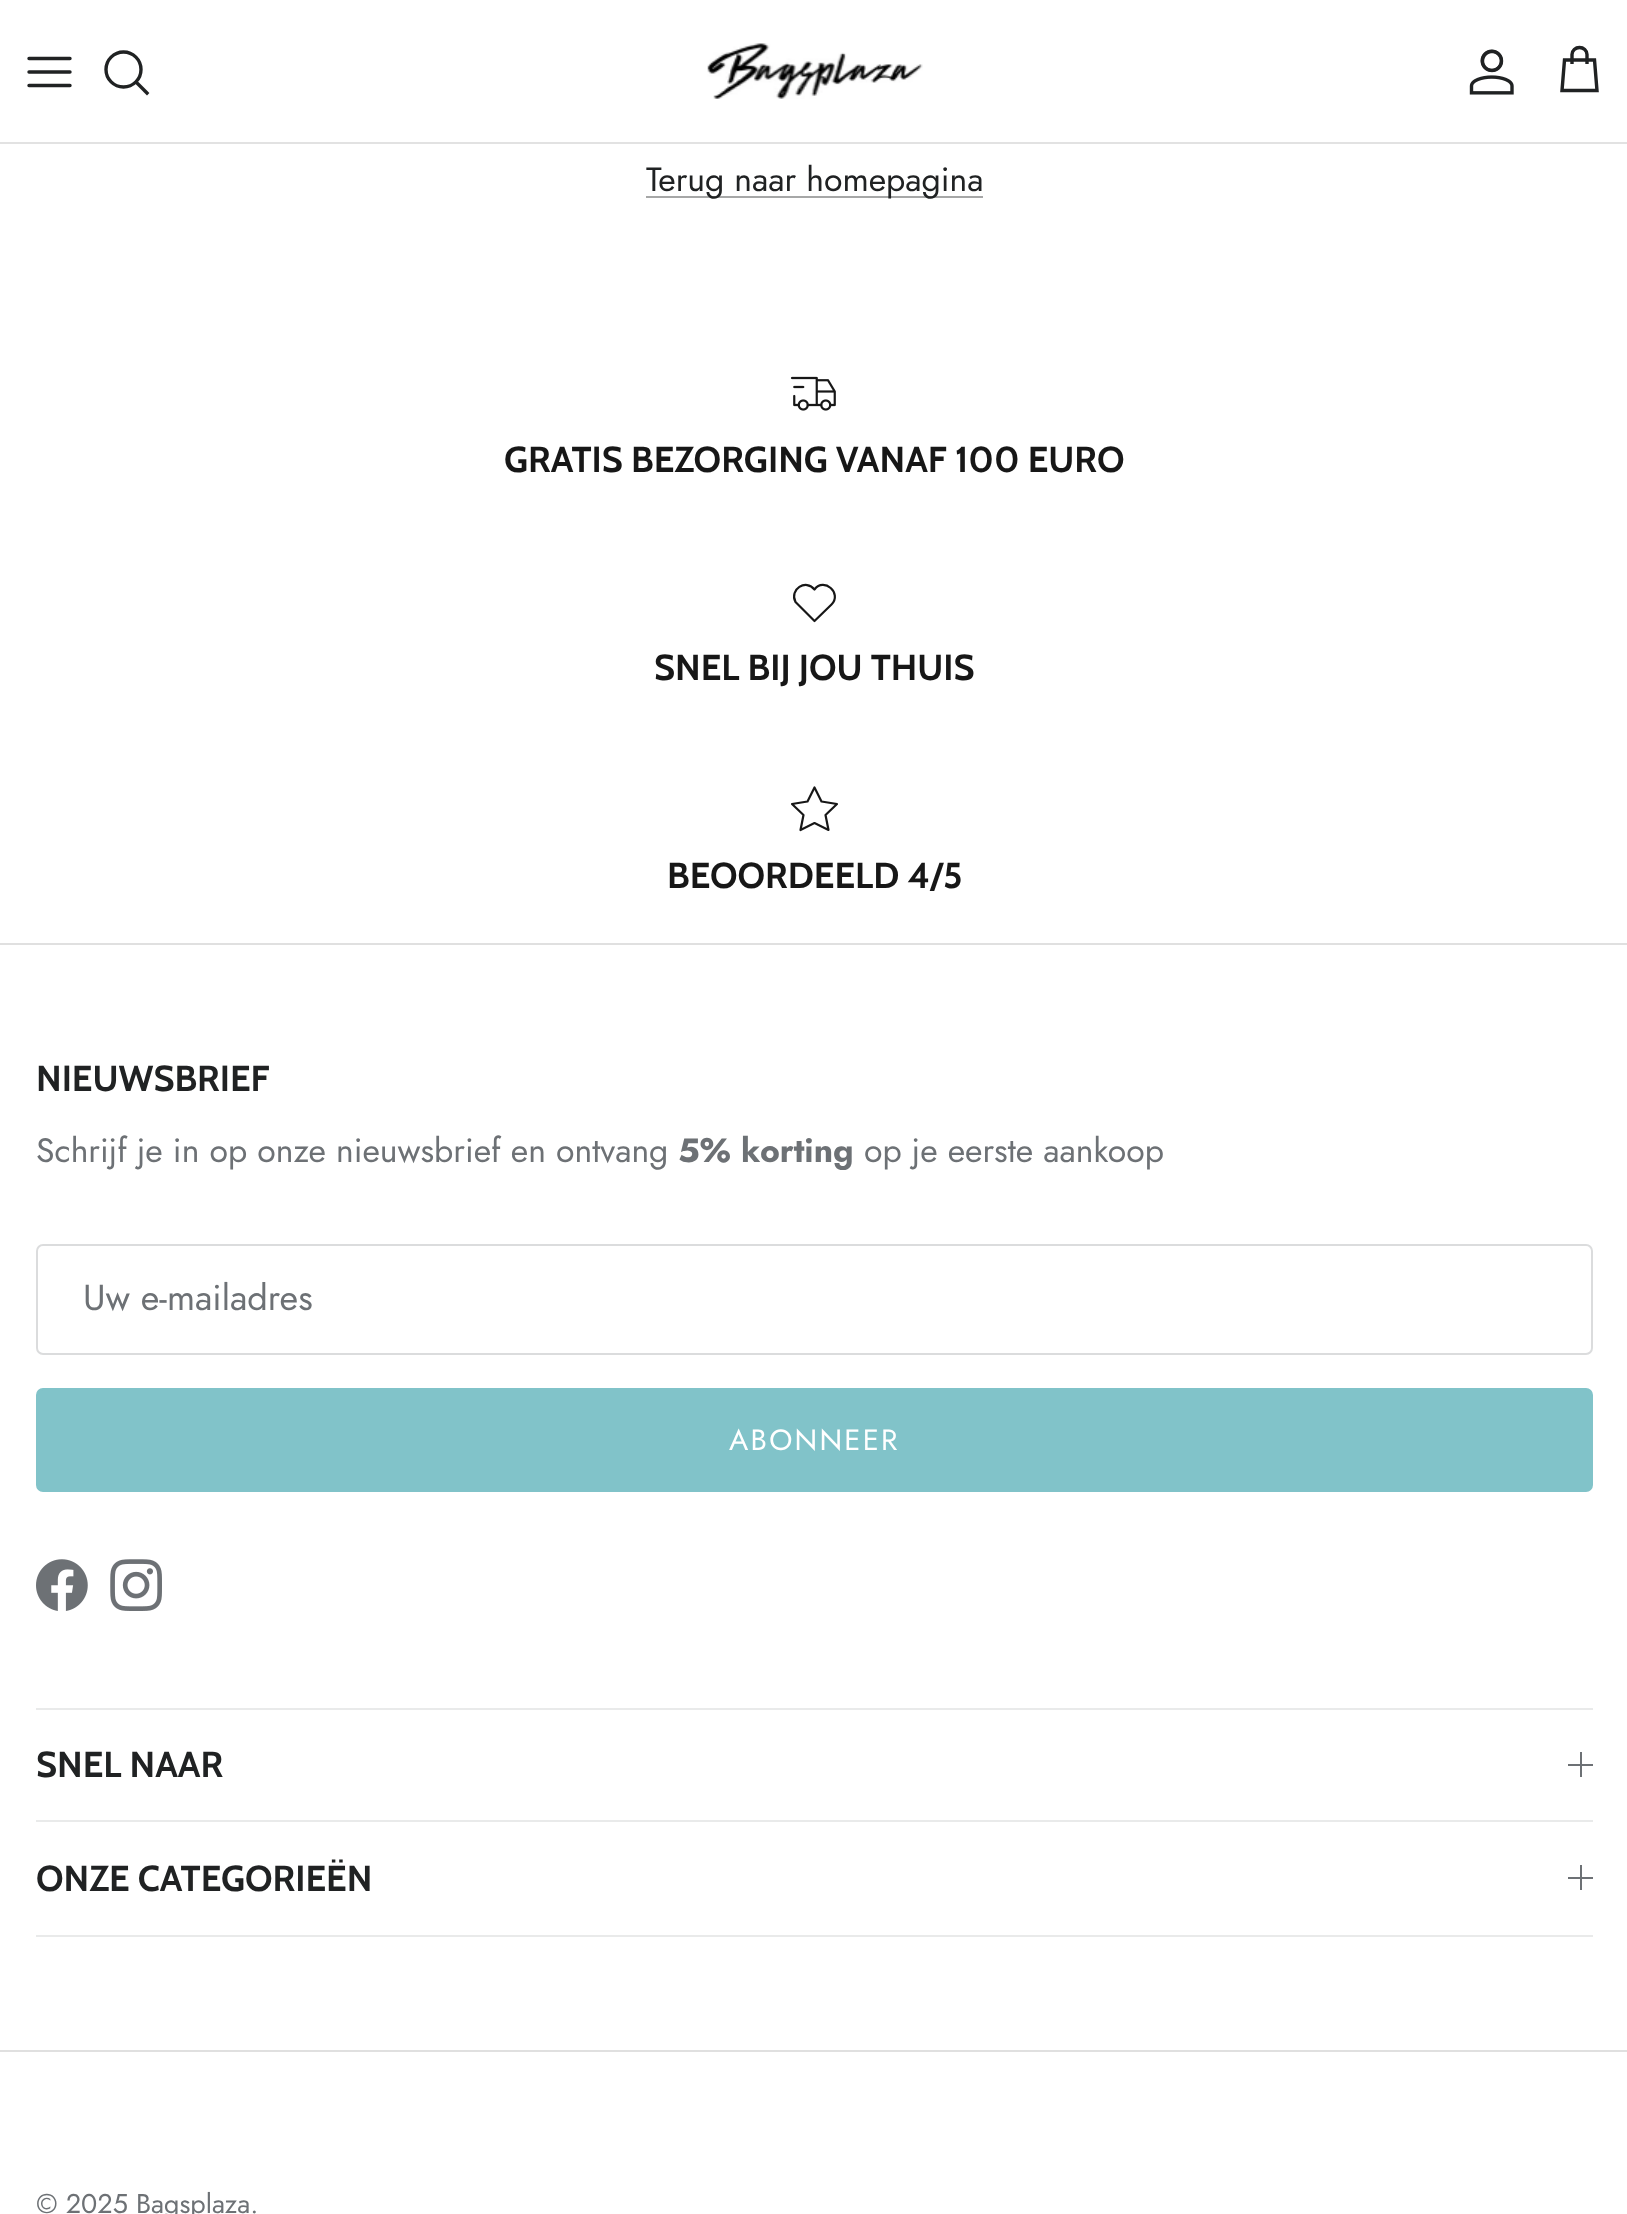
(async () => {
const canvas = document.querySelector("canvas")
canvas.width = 1627
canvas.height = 2214
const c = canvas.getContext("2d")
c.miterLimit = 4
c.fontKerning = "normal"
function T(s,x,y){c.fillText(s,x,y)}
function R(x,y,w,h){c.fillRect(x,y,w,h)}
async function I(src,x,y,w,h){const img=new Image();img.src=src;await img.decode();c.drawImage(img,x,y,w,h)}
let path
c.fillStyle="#fff"
R(0,0,1627,2214)
c.fillStyle="#e2e2e2"
R(0,142,1627,2)
path = new Path2D("M29 72h41m-41-13.5h41m-41 27h41")
c.strokeStyle="#202223"
c.lineWidth=3.4
c.lineCap="round"
c.lineJoin="round"
c.stroke(path)
c.beginPath()
c.arc(123.5,69.5,17.5,0,7)
c.stroke()
path = new Path2D("M137 83l10 10")
c.lineCap="square"
c.lineJoin="miter"
c.stroke(path)
await I("1.png",707,43,216,56)
await I("2.png",1469,49,45,46)
path = new Path2D("M1587 64v-9.5c0-4-3.5-7-7.5-7c-4 0-7.5 3-7.5 7v9.5m-7.5-4h30l2.5 30.5h-35z")
c.lineCap="butt"
c.stroke(path)
c.fillStyle="#a6a7a7"
R(646,196,337,2)
c.font="33.75px Jost"
c.fillStyle="#202223"
T("Terug naar homepagina",646,191)
await I("3.png",790,376,46,35)
c.font="bold 36.25px Cabin"
c.fillStyle="#171717"
T("GRATIS BEZORGING VANAF 100 EURO",504,472)
path = new Path2D("M831.5 604.5l-17 16.5l-19-19c-6.5-12.5 10.5-23.5 19-12.5c9.5-12.5 28 3.5 17 15")
c.strokeStyle="#171717"
c.lineWidth=2.2
c.lineCap="round"
c.lineJoin="round"
c.stroke(path)
T("SNEL BIJ JOU THUIS",654,680)
path = new Path2D("M814.5 823l-14 7l3-15l-11.5-11l15.5-2.5l7-14l7 14l15.5 2.5l-11.5 11l3 15z")
c.stroke(path)
T("BEOORDEELD 4/5",667,888)
c.fillStyle="#e0e0e0"
R(0,943,1627,2)
c.fillStyle="#202223"
T("NIEUWSBRIEF",36,1091)
c.font="33.75px Jost"
c.fillStyle="#6d7175"
T("Schrijf je in op onze nieuwsbrief en ontvang",36,1162)
c.font="bold 33.75px Jost"
T("5% korting",678,1162)
c.font="33.75px Jost"
T("op je eerste aankoop",864,1162)
c.beginPath()
c.roundRect(37,1245,1555,109,6)
c.strokeStyle="#dbdcdd"
c.lineWidth=2
c.lineJoin="miter"
c.stroke()
c.font="36px Jost"
T("Uw e-mailadres",83,1310)
c.fillStyle="#81c3c9"
c.beginPath()
c.roundRect(37,1389,1555,102,6)
c.fill()
c.strokeStyle="#81c3c9"
c.stroke()
c.letterSpacing="2.25px"
c.font="29.25px Jost"
c.fillStyle="#fff"
T("ABONNEER",729,1450)
await I("4.png",36,1559,52,52)
await I("5.png",110,1559,52,52)
c.fillStyle="#e9eaea"
R(36,1708,1557,2)
c.letterSpacing="0px"
c.font="bold 36.25px Cabin"
c.fillStyle="#202223"
T("SNEL NAAR",36,1777)
c.fillStyle="#6d7175"
R(1580,1752,2,25)
R(1568,1764,25,2)
c.fillStyle="#e9eaea"
R(36,1820,1557,2)
R(36,1935,1557,2)
c.fillStyle="#202223"
T("ONZE CATEGORIEËN",36,1891)
c.fillStyle="#6d7175"
R(1580,1865,2,25)
R(1568,1877,25,2)
c.fillStyle="#e0e0e0"
R(0,2050,1627,2)
c.font="27px Jost"
c.fillStyle="#6d7175"
T("© 2025 Bagsplaza.",36,2213)
})()
